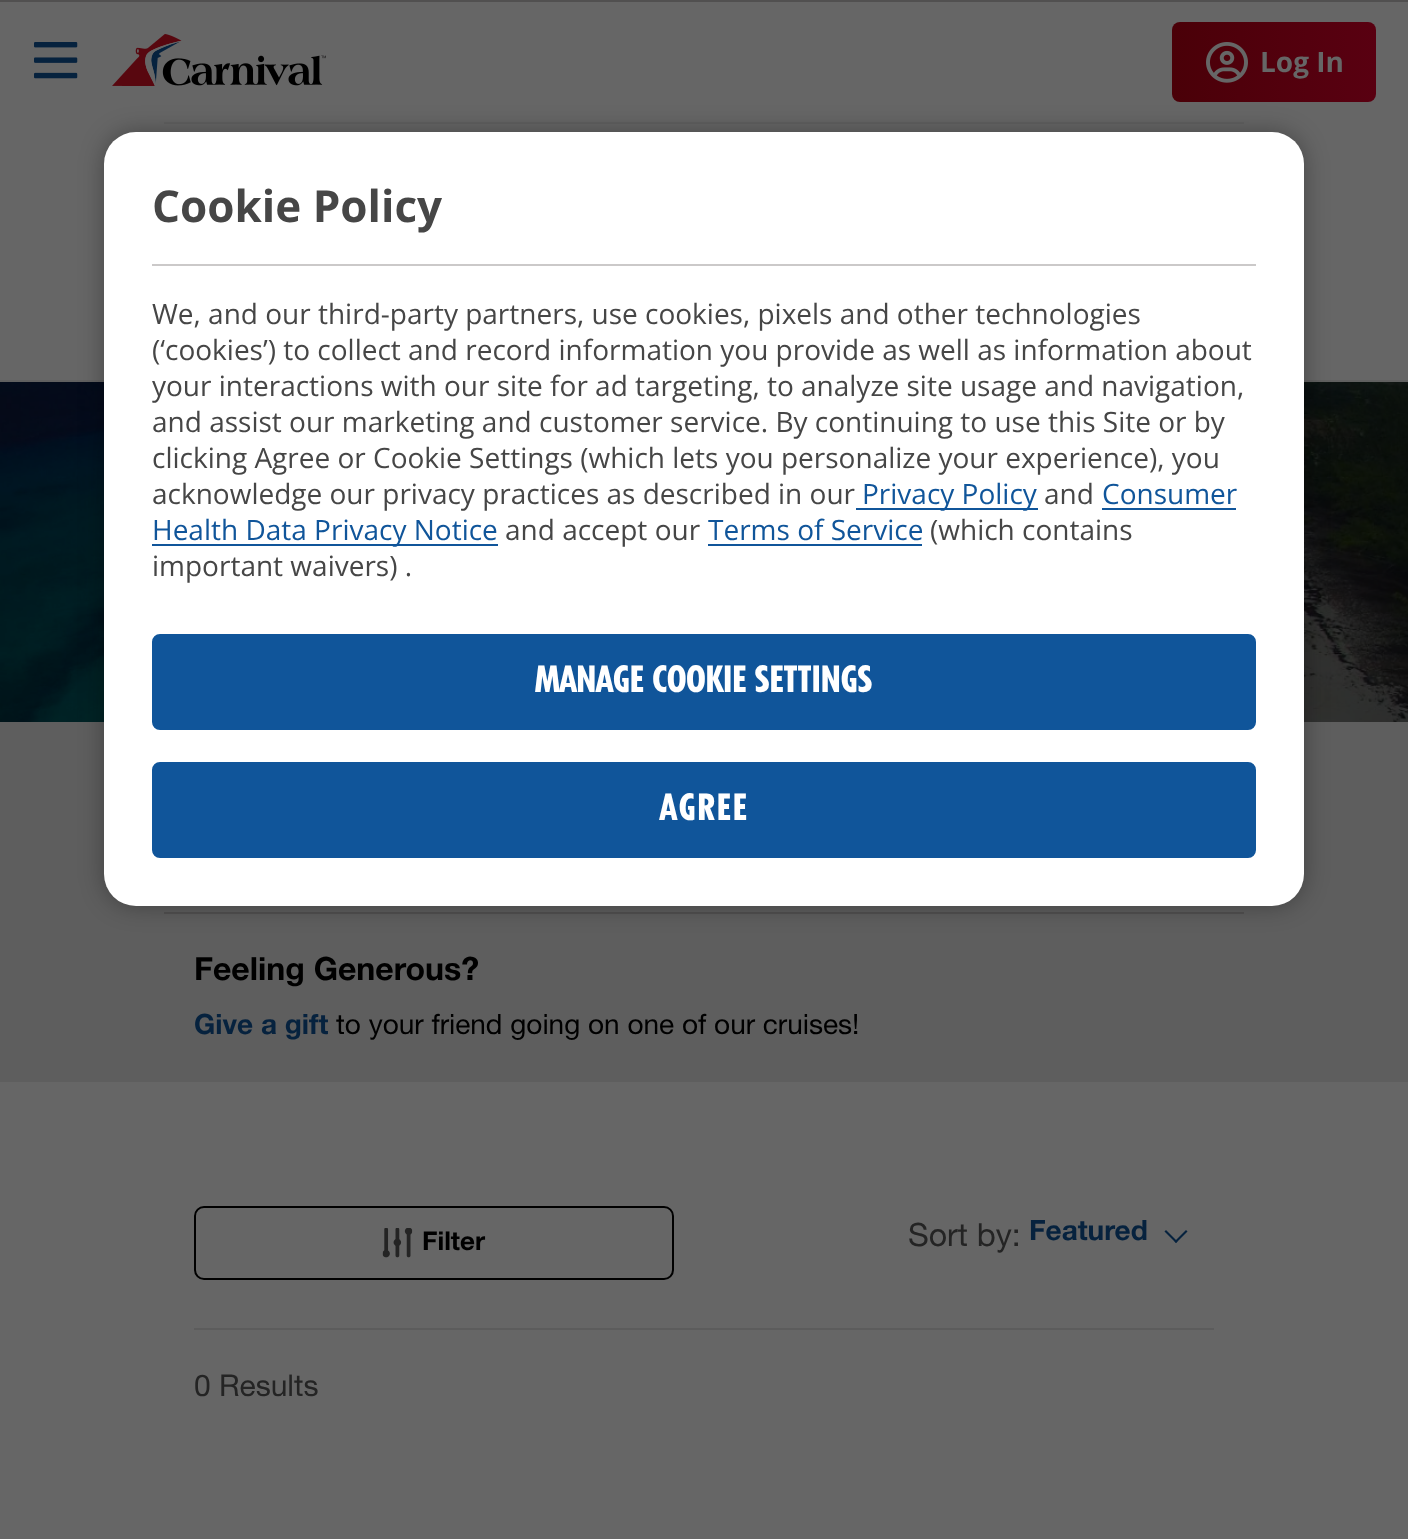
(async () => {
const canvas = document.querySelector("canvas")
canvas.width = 1408
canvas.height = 1539
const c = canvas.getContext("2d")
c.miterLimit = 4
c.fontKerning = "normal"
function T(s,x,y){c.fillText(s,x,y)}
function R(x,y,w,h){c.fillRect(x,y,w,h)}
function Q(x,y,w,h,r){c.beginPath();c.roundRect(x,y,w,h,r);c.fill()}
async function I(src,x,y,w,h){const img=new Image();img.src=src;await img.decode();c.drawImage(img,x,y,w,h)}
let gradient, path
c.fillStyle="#666"
R(0,0,1408,1539)
c.fillStyle="#515050"
R(0,0,1408,2)
await I("1.png",34,42,44,37)
await I("2.png",112,34,214,52)
gradient = c.createLinearGradient(1376,62,1172,62)
gradient.addColorStop(0,"#590011")
gradient.addColorStop(1,"#4a0008")
c.fillStyle = gradient
Q(1172,22,204,80,8)
await I("3.png",1206,42,42,41)
c.font="bold 28px Open Sans"
c.fillStyle="#666"
T("Log In",1260,72)
c.fillStyle="#606060"
R(0,380,1408,2)
R(164,122,1080,2)
await I("4.png",0,382,1408,340)
c.fillStyle="#5e5e5e"
R(0,722,1408,360)
c.fillStyle="#515050"
R(164,912,1080,2)
c.font="bold 32px Helvetica Neue"
c.fillStyle="#000"
T("Feeling Generous?",194,980)
c.font="bold 28px Helvetica Neue"
c.fillStyle="#06223e"
T("Give a gift",194,1034)
c.font="28px Helvetica Neue"
c.fillStyle="#000"
T("to your friend going on one of our cruises!",336,1034)
c.beginPath()
c.roundRect(195,1207,478,72,9)
c.strokeStyle="#000"
c.lineWidth=2
c.stroke()
await I("5.png",382,1228,31,30)
c.font="bold 26px Helvetica Neue"
T("Filter",422,1250)
c.font="32px Helvetica Neue"
c.fillStyle="#242424"
T("Sort by:",908,1246)
c.font="bold 28px Helvetica Neue"
c.fillStyle="#06223e"
T("Featured",1029,1240)
path = new Path2D("M1186 1230l1.5 1.5l-11.5 11.5l-1.5-1.5z")
c.fill(path)
path = new Path2D("M1166 1230l11.5 11.5l-1.5 1.5l-11.5-11.5z")
c.fill(path)
c.fillStyle="#5c5c5c"
R(194,1328,1020,2)
c.font="30px Helvetica Neue"
c.fillStyle="#242424"
T("0 Results",194,1396)
c.fillStyle="#00000052"
c.filter="blur(12px)"
c.beginPath()
c.roundRect(104,132,1200,774,32)
c.fill()
c.filter="none"
c.fillStyle="#fff"
Q(104,132,1200,774,32)
c.fillStyle="#cbc9c9"
R(152,264,1104,2)
c.font="bold 44px Open Sans"
c.fillStyle="#464646"
T("Cookie Policy",152,222)
c.font="28px Open Sans"
T("We, and our third-party partners, use cookies, pixels and other technologies",152,324)
T("(‘cookies’) to collect and record information you provide as well as information about",152,360)
T("your interactions with our site for ad targeting, to analyze site usage and navigation,",152,396)
T("and assist our marketing and customer service. By continuing to use this Site or by",152,432)
T("clicking Agree or Cookie Settings (which lets you personalize your experience), you",152,468)
T("acknowledge our privacy practices as described in our",152,504)
c.fillStyle="#10559a"
R(856,508,182,2)
T("Privacy Policy",862,504)
c.fillStyle="#464646"
T("and",1044,504)
c.fillStyle="#10559a"
T("Consumer",1102,504)
R(1102,508,134,2)
R(152,544,346,2)
T("Health Data Privacy Notice",152,540)
c.fillStyle="#464646"
T("and accept our",505,540)
c.fillStyle="#10559a"
T("Terms of Service",708,540)
R(708,544,214,2)
c.fillStyle="#464646"
T("(which contains",930,540)
T("important waivers) .",152,576)
c.fillStyle="#10559a"
c.beginPath()
c.roundRect(153,635,1102,94,7)
c.fill()
c.strokeStyle="#10559a"
c.stroke()
c.font="900 36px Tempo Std"
c.fillStyle="#fff"
T("MANAGE COOKIE SETTINGS",535,692)
c.fillStyle="#10559a"
c.beginPath()
c.roundRect(153,763,1102,94,7)
c.fill()
c.stroke()
c.letterSpacing="2px"
c.fillStyle="#fff"
T("AGREE",660,820)
})()
